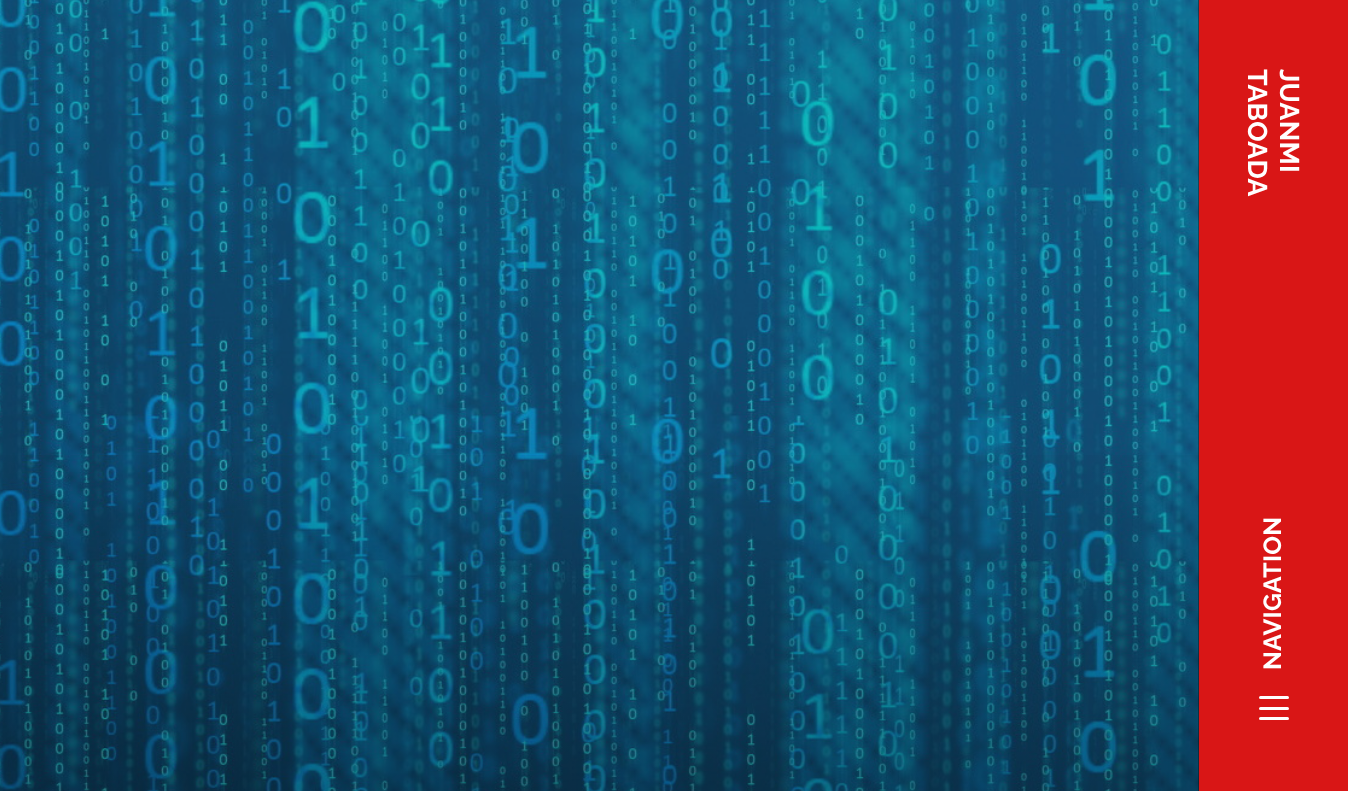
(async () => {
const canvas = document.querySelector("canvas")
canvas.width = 1348
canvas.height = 791
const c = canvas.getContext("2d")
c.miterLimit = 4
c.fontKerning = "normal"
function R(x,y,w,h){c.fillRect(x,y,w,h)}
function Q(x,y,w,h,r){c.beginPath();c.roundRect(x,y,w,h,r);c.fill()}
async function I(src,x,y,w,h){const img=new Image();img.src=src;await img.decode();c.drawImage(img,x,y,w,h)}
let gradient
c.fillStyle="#1d1d1f"
R(0,0,1348,791)
await I("1.png",0,0,1199,791)
gradient = c.createLinearGradient(599,-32,599,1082)
gradient.addColorStop(.41,"#00000000")
gradient.addColorStop(.91,"#00000066")
c.fillStyle = gradient
R(0,455,1199,336)
c.fillStyle="#d91616"
R(1199,0,149,791)
c.letterSpacing="0.25px"
c.font="bold 27px Raleway"
c.fillStyle="#fff"
c.save()
c.translate(1248,69)
c.rotate(90 * Math.PI / 180)
c.fillText("TABOADA",0,0)
c.restore()
c.save()
c.translate(1280,69)
c.rotate(90 * Math.PI / 180)
c.fillText("JUANMI",0,0)
c.restore()
c.font="bold 24.75px Raleway"
c.save()
c.translate(1281,670)
c.rotate(-90 * Math.PI / 180)
c.fillText("NAVIGATION",0,0)
c.restore()
Q(1259,696,30,3,1.5)
Q(1259,707,30,3,1.5)
Q(1259,717,30,3,1.5)
})()
